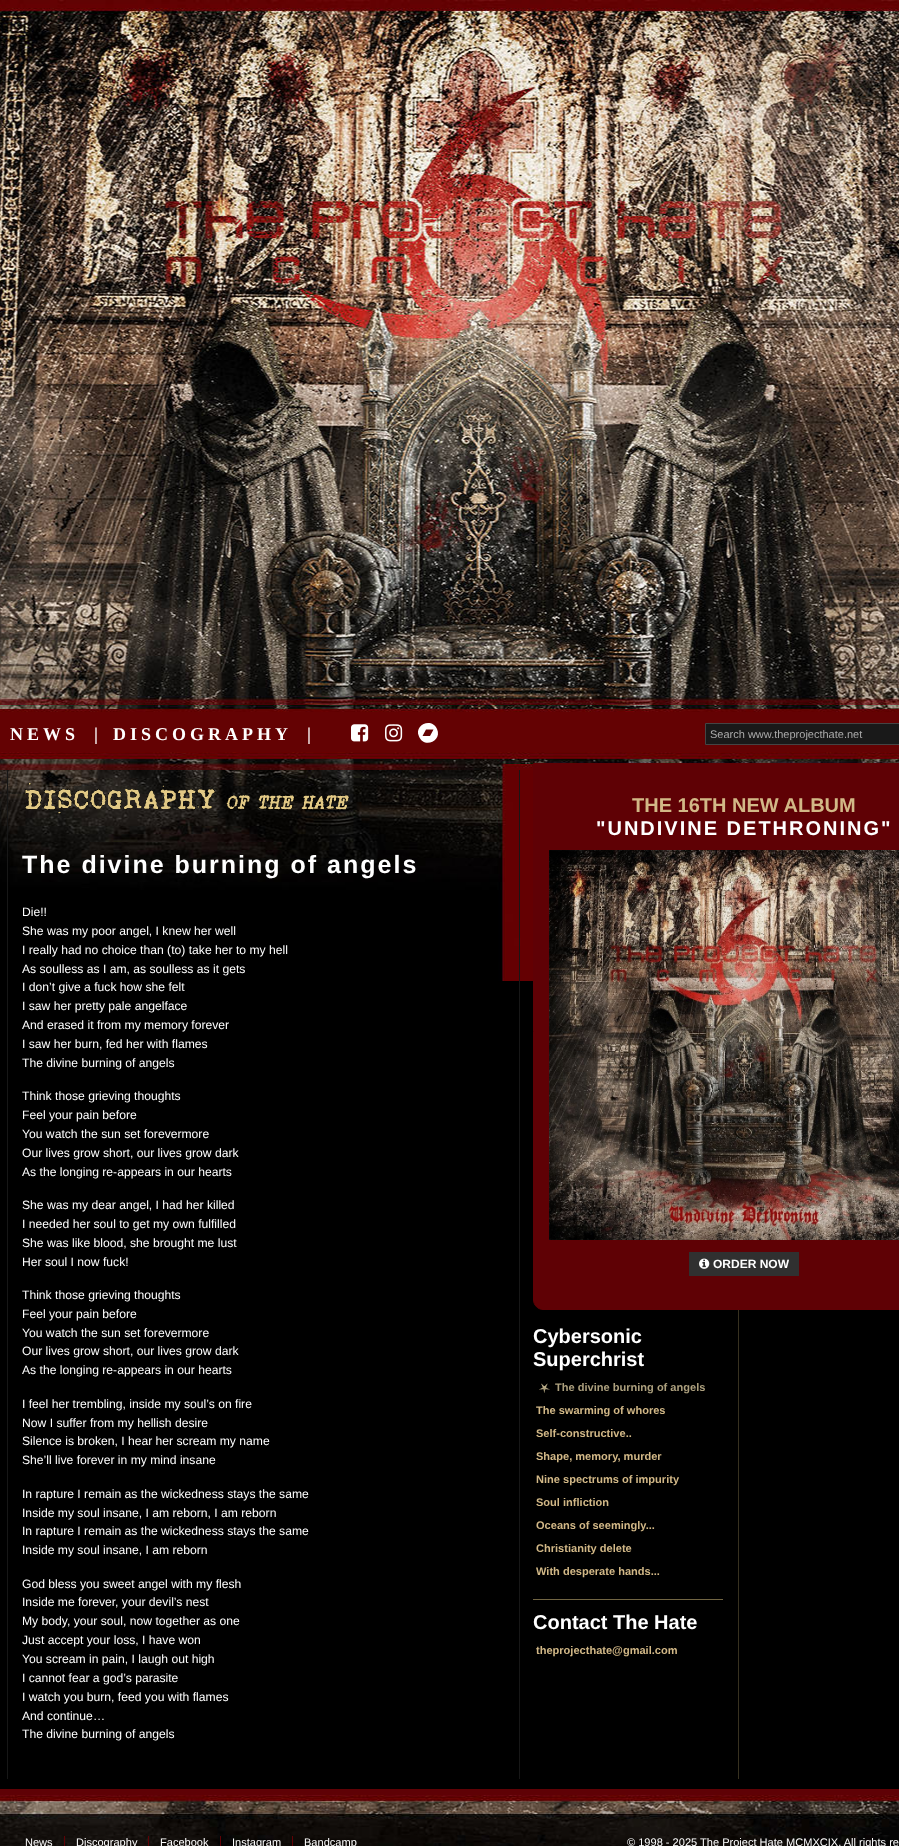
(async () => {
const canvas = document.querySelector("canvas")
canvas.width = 899
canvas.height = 1846
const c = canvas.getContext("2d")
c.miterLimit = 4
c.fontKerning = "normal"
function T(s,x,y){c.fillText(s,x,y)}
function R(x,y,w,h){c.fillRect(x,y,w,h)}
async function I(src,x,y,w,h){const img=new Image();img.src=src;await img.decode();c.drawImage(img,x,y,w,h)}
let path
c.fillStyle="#000"
R(0,0,899,1846)
await I("1.png",0,0,899,770)
c.letterSpacing="4px"
c.font="bold 18px Liberation Serif"
c.fillStyle="#fff"
T("NEWS",10,740)
c.letterSpacing="0px"
T("|",94,740)
c.letterSpacing="4px"
T("DISCOGRAPHY",113,740)
c.letterSpacing="0px"
T("|",307,740)
await I("2.png",351,724,18,18)
await I("3.png",385,724,18,18)
path = new Path2D("M430 736l3.5-6.5h-7.5l-3.5 6.5zm7-7c5.5 12-13 20-18 7.5c-5.5-12 13-19.5 18-7.5z")
c.fill(path)
c.fillStyle="#191919"
c.beginPath()
c.rect(705.5,723.5,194,21)
c.fill()
c.strokeStyle="#444"
c.stroke()
c.save()
c.beginPath()
c.rect(710,728,187,12)
c.clip()
c.font="11px Liberation Sans"
c.fillStyle="#aaa"
T("Search www.theprojecthate.net",710,738)
c.restore()
await I("4.png",0,770,533,211)
await I("5.png",7,770,732,1009)
await I("6.png",25,783,324,31)
c.letterSpacing="2px"
c.font="bold 25px Liberation Sans"
c.fillStyle="#fff"
T("The divine burning of angels",22,873)
c.letterSpacing="0px"
c.font="12.15px Liberation Sans"
T("Die!!",22,916)
T("She was my poor angel, I knew her well",22,935)
T("I really had no choice than (to) take her to my hell",22,954)
T("As soulless as I am, as soulless as it gets",22,973)
T("I don’t give a fuck how she felt",22,991)
T("I saw her pretty pale angelface",22,1010)
T("And erased it from my memory forever",22,1029)
T("I saw her burn, fed her with flames",22,1048)
T("The divine burning of angels",22,1067)
T("Think those grieving thoughts",22,1100)
T("Feel your pain before",22,1119)
T("You watch the sun set forevermore",22,1138)
T("Our lives grow short, our lives grow dark",22,1157)
T("As the longing re-appears in our hearts",22,1176)
T("She was my dear angel, I had her killed",22,1209)
T("I needed her soul to get my own fulfilled",22,1228)
T("She was like blood, she brought me lust",22,1247)
T("Her soul I now fuck!",22,1266)
T("Think those grieving thoughts",22,1299)
T("Feel your pain before",22,1318)
T("You watch the sun set forevermore",22,1337)
T("Our lives grow short, our lives grow dark",22,1355)
T("As the longing re-appears in our hearts",22,1374)
T("I feel her trembling, inside my soul’s on fire",22,1408)
T("Now I suffer from my hellish desire",22,1427)
T("Silence is broken, I hear her scream my name",22,1445)
T("She’ll live forever in my mind insane",22,1464)
T("In rapture I remain as the wickedness stays the same",22,1498)
T("Inside my soul insane, I am reborn, I am reborn",22,1517)
T("In rapture I remain as the wickedness stays the same",22,1535)
T("Inside my soul insane, I am reborn",22,1554)
T("God bless you sweet angel with my flesh",22,1588)
T("Inside me forever, your devil’s nest",22,1606)
T("My body, your soul, now together as one",22,1625)
T("Just accept your loss, I have won",22,1644)
T("You scream in pain, I laugh out high",22,1663)
T("I cannot fear a god’s parasite",22,1682)
T("I watch you burn, feed you with flames",22,1701)
T("And continue…",22,1720)
T("The divine burning of angels",22,1738)
c.fillStyle="#5f0105"
path = new Path2D("M533.5 763.5h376v536.5c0 5-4.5 9.5-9.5 9.5h-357c-5 0-9.5-4.5-9.5-9.5z")
c.fill(path)
c.strokeStyle="#5f0105"
c.stroke(path)
c.font="bold 20px Liberation Sans"
c.fillStyle="#d2b887"
T("THE 16TH NEW ALBUM",632,812)
c.letterSpacing="2px"
c.fillStyle="#fff"
T("\"UNDIVINE DETHRONING\"",596,835)
await I("7.png",549,850,350,390)
c.fillStyle="#303030"
R(689,1252,110,24)
await I("8.png",699,1258,11,11)
c.letterSpacing="0px"
c.font="bold 12px Liberation Sans"
c.fillStyle="#fff"
T("ORDER NOW",713,1268)
c.fillStyle="#716543"
R(533,1599,190,1)
c.font="bold 20px Liberation Sans"
c.fillStyle="#fff"
T("Cybersonic",533,1343)
T("Superchrist",533,1366)
await I("9.png",539,1383,11,10)
c.font="bold 11.05px Liberation Sans"
c.fillStyle="#ada07e"
T("The divine burning of angels",555,1391)
c.fillStyle="#d2b887"
T("The swarming of whores",536,1414)
T("Self-constructive..",536,1437)
T("Shape, memory, murder",536,1460)
T("Nine spectrums of impurity",536,1483)
T("Soul infliction",536,1506)
T("Oceans of seemingly...",536,1529)
T("Christianity delete",536,1552)
T("With desperate hands...",536,1575)
c.font="bold 20px Liberation Sans"
c.fillStyle="#fff"
T("Contact The Hate",533,1629)
c.font="bold 11.05px Liberation Sans"
c.fillStyle="#d2b887"
T("theprojecthate@gmail.com",536,1654)
c.fillStyle="#5f0105"
R(0,1789,899,6)
await I("10.png",0,1795,899,51)
R(64,1836,1,10)
c.font="11.05px Liberation Sans"
c.fillStyle="#fff"
T("News",25,1846)
c.fillStyle="#5f0105"
R(148,1836,1,10)
c.fillStyle="#fff"
T("Discography",76,1846)
c.fillStyle="#5f0105"
R(220,1836,1,10)
c.fillStyle="#fff"
T("Facebook",160,1846)
c.fillStyle="#5f0105"
R(292,1836,1,10)
c.fillStyle="#fff"
T("Instagram",232,1846)
T("Bandcamp",304,1846)
T("© 1998 - 2025 The Project Hate MCMXCIX. All rights re",627,1846)
})()
